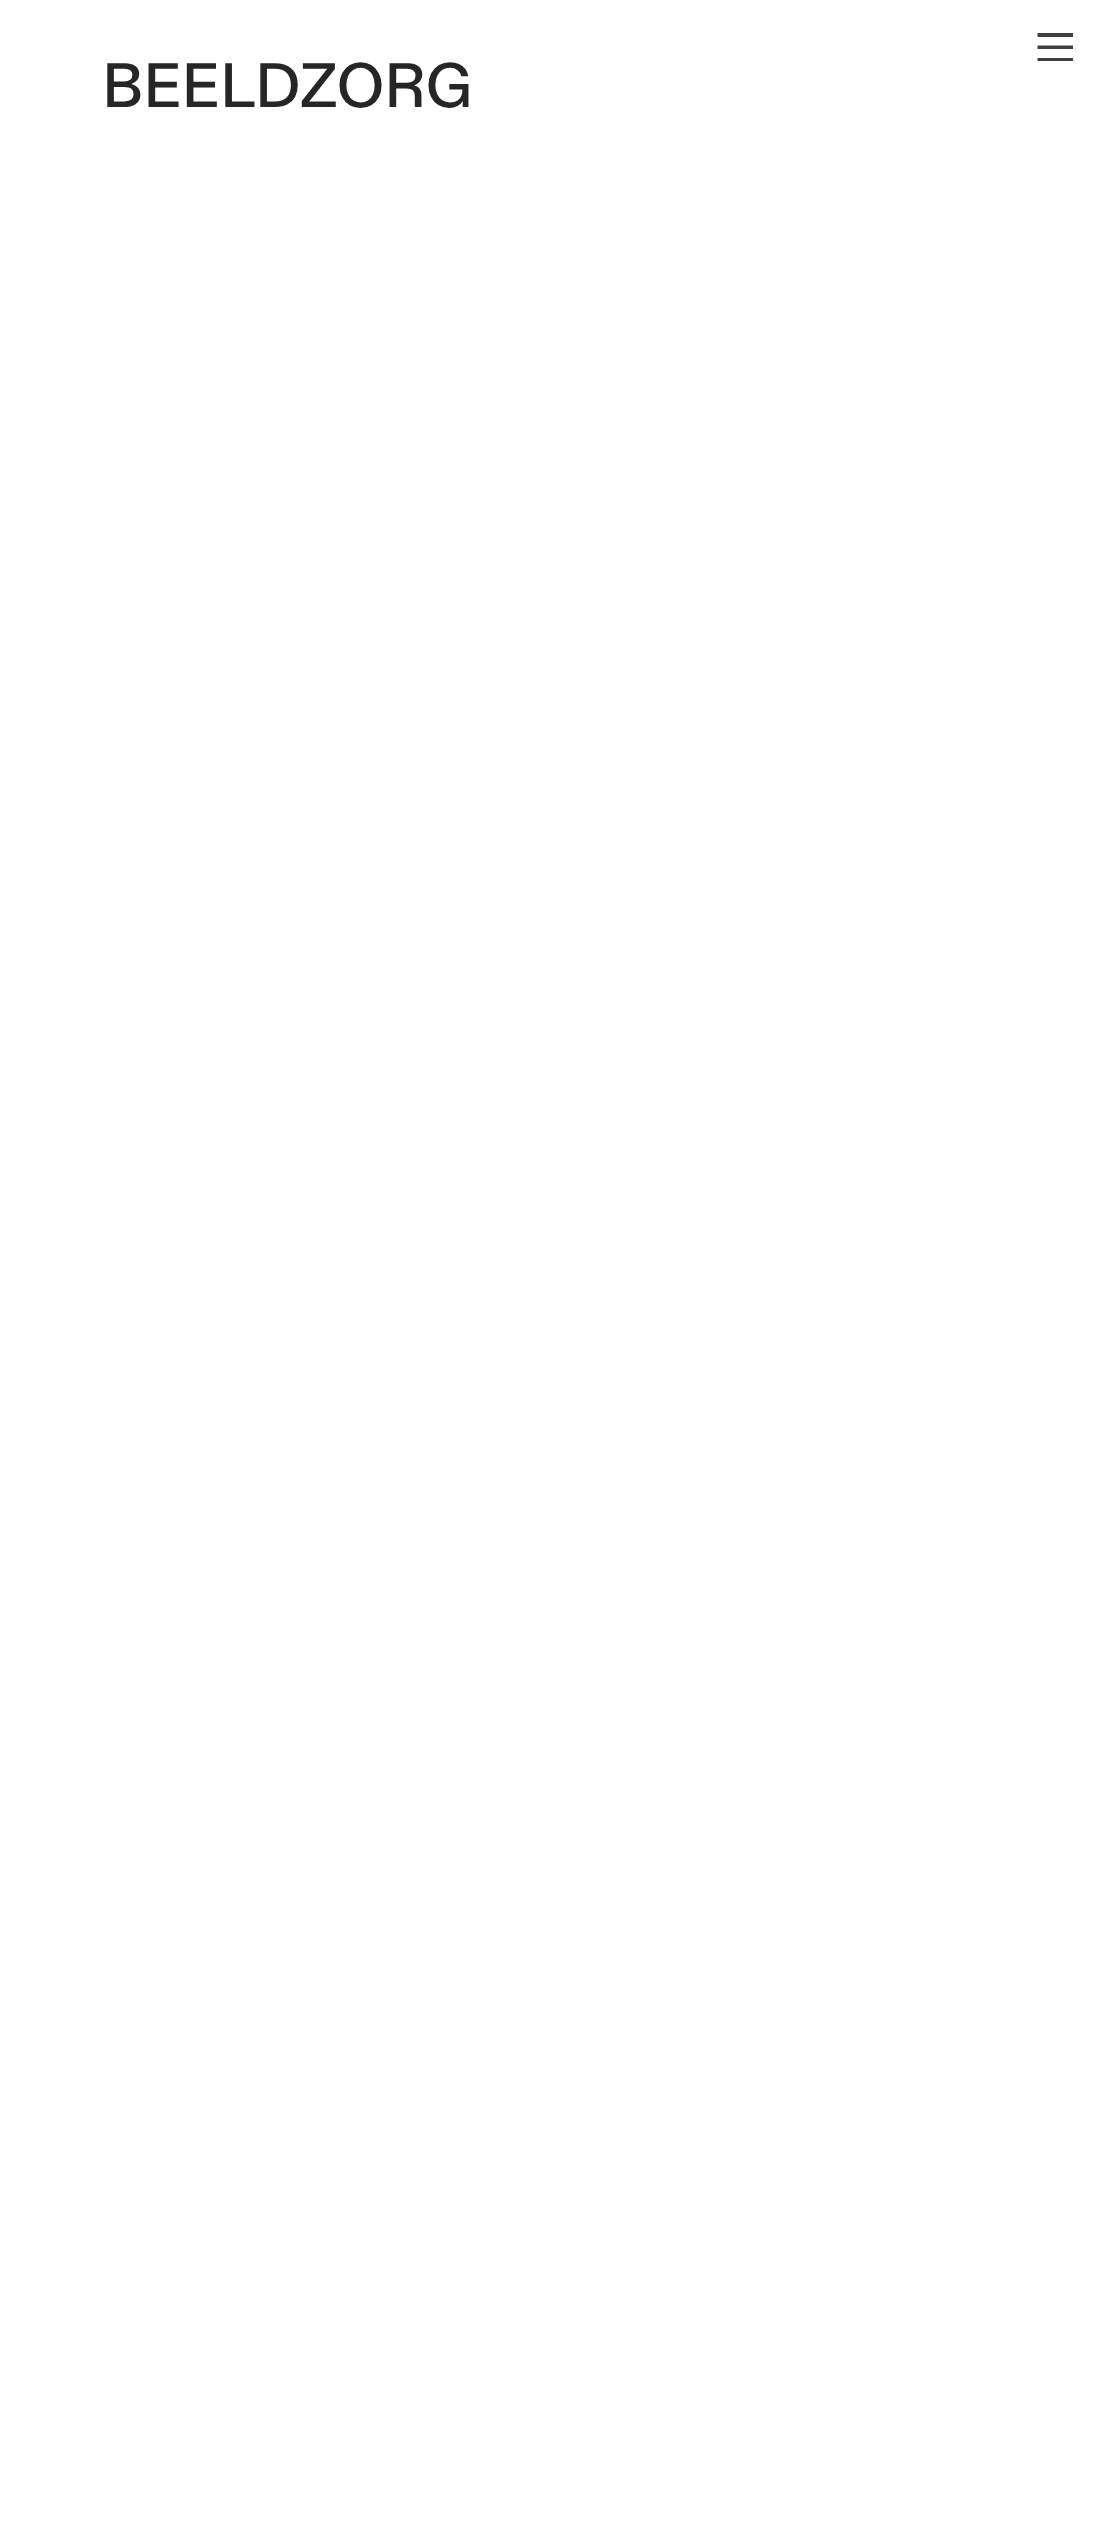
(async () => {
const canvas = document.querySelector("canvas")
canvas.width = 1109
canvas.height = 2527
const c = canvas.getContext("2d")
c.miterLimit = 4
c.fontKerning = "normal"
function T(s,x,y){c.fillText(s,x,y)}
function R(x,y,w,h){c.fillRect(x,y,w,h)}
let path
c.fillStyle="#fff"
R(0,0,1109,2527)
c.fillStyle="#404040"
path = new Path2D("M1073 33v4h-35.5v-4zm0 12.5v3.5h-35.5v-3.5zm0 12.5v3h-35.5v-3z")
c.fill(path)
c.font="500 62.5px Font"
c.fillStyle="#262626"
T("BEELDZORG",102,107)
})()
